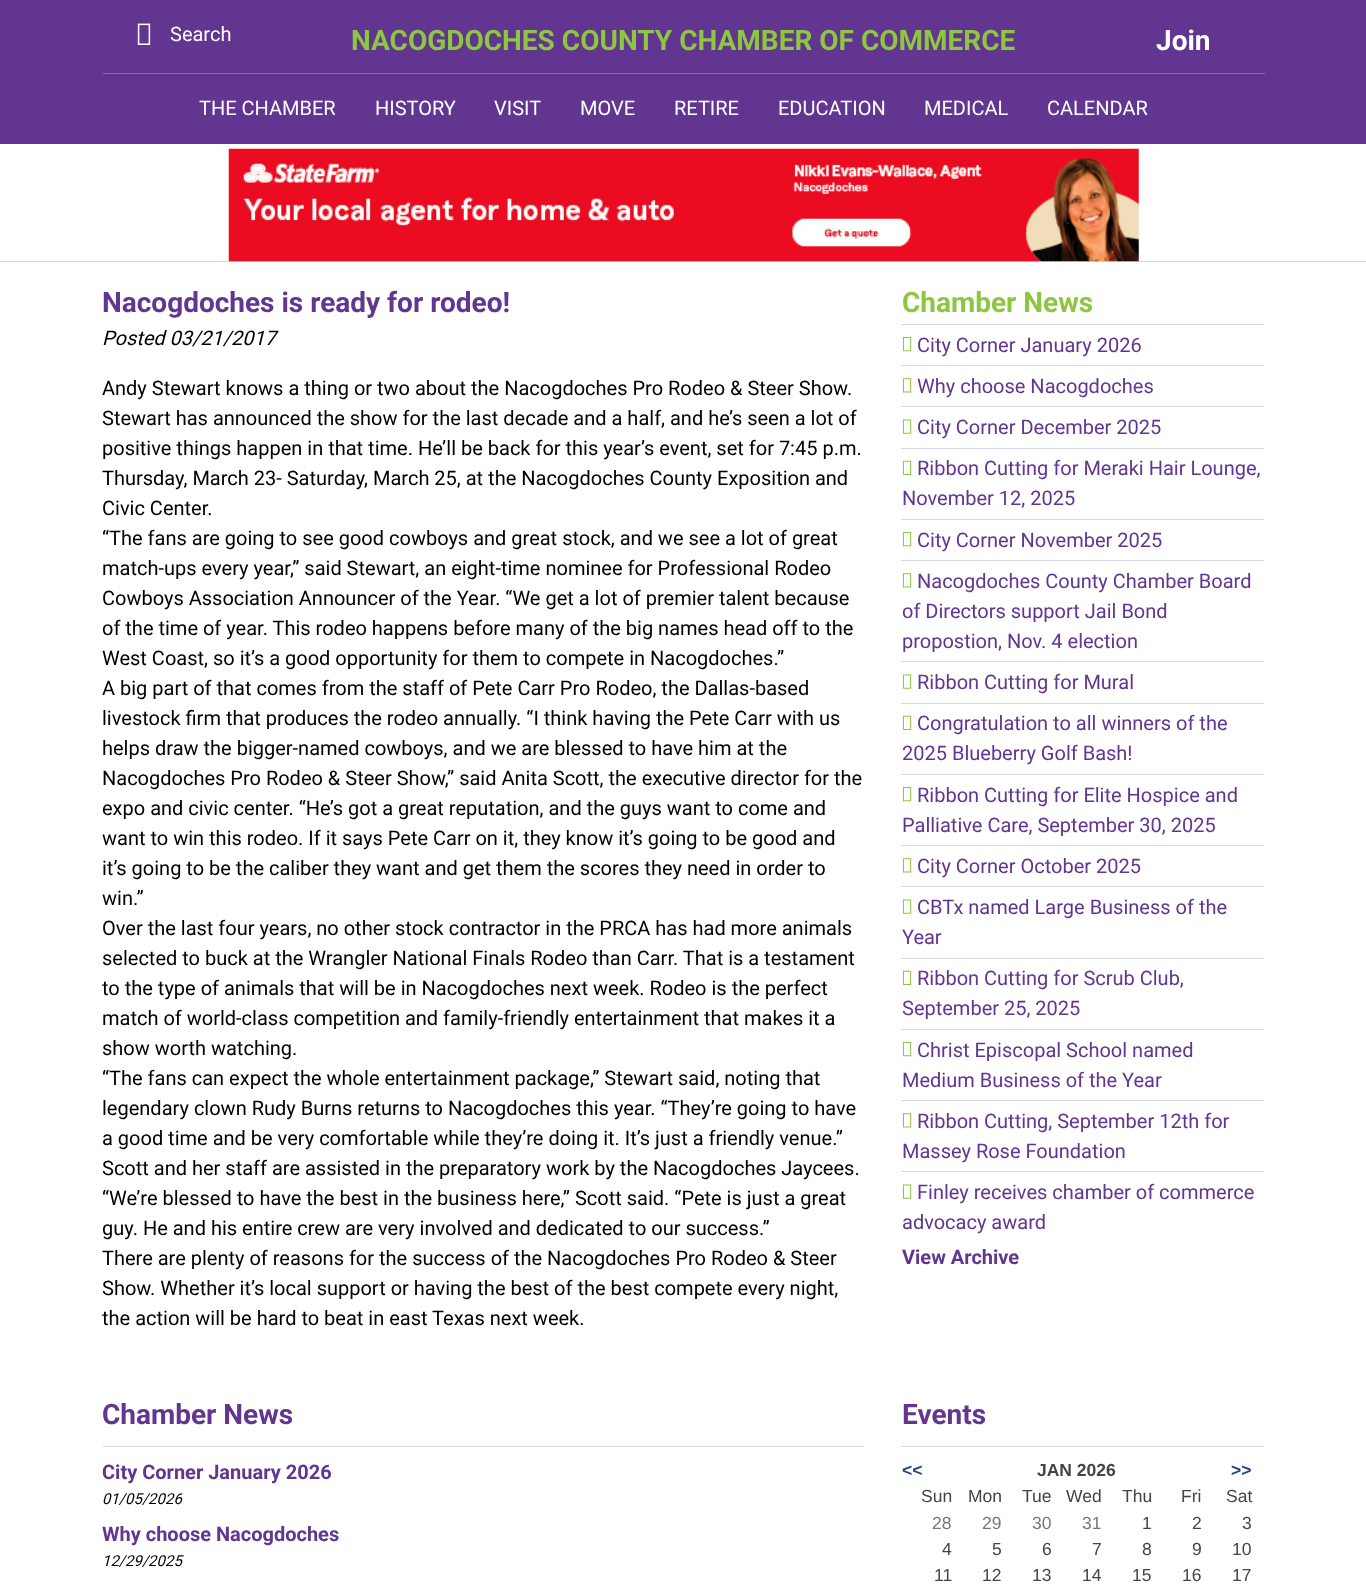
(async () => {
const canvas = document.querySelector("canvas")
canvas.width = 1366
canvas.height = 1587
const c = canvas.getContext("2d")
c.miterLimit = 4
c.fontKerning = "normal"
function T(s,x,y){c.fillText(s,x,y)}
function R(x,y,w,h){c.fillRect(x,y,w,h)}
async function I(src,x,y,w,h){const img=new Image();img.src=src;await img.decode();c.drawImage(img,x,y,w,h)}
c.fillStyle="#613590"
R(0,0,1366,1587)
await I("1.png",137,23,14,22)
c.font="20px Roboto"
c.fillStyle="#fff"
T("Search",170,41)
c.font="bold 28px Roboto"
c.fillStyle="#8dc63f"
T("NACOGDOCHES COUNTY CHAMBER OF COMMERCE",351,50)
c.fillStyle="#fff"
T("Join",1156,50)
c.fillStyle="#8968ac"
R(103,73,1162,1)
c.font="20px Roboto"
c.fillStyle="#fff"
T("THE CHAMBER",199,115)
T("HISTORY",375,115)
T("VISIT",494,115)
T("MOVE",580,115)
T("RETIRE",674,115)
T("EDUCATION",778,115)
T("MEDICAL",924,115)
T("CALENDAR",1047,115)
R(0,144,1366,1443)
c.fillStyle="#c0e2e3"
R(0,261,1366,1)
await I("2.png",228,148,911,114)
c.font="bold 28px Roboto"
c.fillStyle="#613590"
T("Nacogdoches is ready for rodeo!",102,312)
c.font="italic 20px Roboto"
c.fillStyle="#000"
T("Posted 03/21/2017",102,345)
c.font="20px Roboto"
T("Andy Stewart knows a thing or two about the Nacogdoches Pro Rodeo & Steer Show.",102,395)
T("Stewart has announced the show for the last decade and a half, and he’s seen a lot of",102,425)
T("positive things happen in that time. He’ll be back for this year’s event, set for 7:45 p.m.",102,455)
T("Thursday, March 23- Saturday, March 25, at the Nacogdoches County Exposition and",102,485)
T("Civic Center.",102,515)
T("“The fans are going to see good cowboys and great stock, and we see a lot of great",102,545)
T("match-ups every year,” said Stewart, an eight-time nominee for Professional Rodeo",102,575)
T("Cowboys Association Announcer of the Year. “We get a lot of premier talent because",102,605)
T("of the time of year. This rodeo happens before many of the big names head off to the",102,635)
T("West Coast, so it’s a good opportunity for them to compete in Nacogdoches.”",102,665)
T("A big part of that comes from the staff of Pete Carr Pro Rodeo, the Dallas-based",102,695)
T("livestock firm that produces the rodeo annually. “I think having the Pete Carr with us",102,725)
T("helps draw the bigger-named cowboys, and we are blessed to have him at the",102,755)
T("Nacogdoches Pro Rodeo & Steer Show,” said Anita Scott, the executive director for the",102,785)
T("expo and civic center. “He’s got a great reputation, and the guys want to come and",102,815)
T("want to win this rodeo. If it says Pete Carr on it, they know it’s going to be good and",102,845)
T("it’s going to be the caliber they want and get them the scores they need in order to",102,875)
T("win.”",102,905)
T("Over the last four years, no other stock contractor in the PRCA has had more animals",102,935)
T("selected to buck at the Wrangler National Finals Rodeo than Carr. That is a testament",102,965)
T("to the type of animals that will be in Nacogdoches next week. Rodeo is the perfect",102,995)
T("match of world-class competition and family-friendly entertainment that makes it a",102,1025)
T("show worth watching.",102,1055)
T("“The fans can expect the whole entertainment package,” Stewart said, noting that",102,1085)
T("legendary clown Rudy Burns returns to Nacogdoches this year. “They’re going to have",102,1115)
T("a good time and be very comfortable while they’re doing it. It’s just a friendly venue.”",102,1145)
T("Scott and her staff are assisted in the preparatory work by the Nacogdoches Jaycees.",102,1175)
T("“We’re blessed to have the best in the business here,” Scott said. “Pete is just a great",102,1205)
T("guy. He and his entire crew are very involved and dedicated to our success.”",102,1235)
T("There are plenty of reasons for the success of the Nacogdoches Pro Rodeo & Steer",102,1265)
T("Show. Whether it’s local support or having the best of the best compete every night,",102,1295)
T("the action will be hard to beat in east Texas next week.",102,1325)
c.font="bold 28px Roboto"
c.fillStyle="#8dc63f"
T("Chamber News",902,312)
c.fillStyle="#dcd6e9"
R(901,324,363,1)
await I("3.png",902,336,10,16)
c.font="20px Roboto"
c.fillStyle="#613590"
T("City Corner January 2026",917,352)
c.fillStyle="#dcd6e9"
R(901,365,363,1)
await I("4.png",902,378,10,15)
c.fillStyle="#613590"
T("Why choose Nacogdoches",917,393)
c.fillStyle="#dcd6e9"
R(901,406,363,1)
await I("5.png",902,419,10,15)
c.fillStyle="#613590"
T("City Corner December 2025",917,434)
c.fillStyle="#dcd6e9"
R(901,448,363,1)
await I("6.png",902,460,10,15)
c.fillStyle="#613590"
T("Ribbon Cutting for Meraki Hair Lounge,",917,475)
T("November 12, 2025",902,505)
c.fillStyle="#dcd6e9"
R(901,519,363,1)
await I("3.png",902,531,10,16)
c.fillStyle="#613590"
T("City Corner November 2025",917,547)
c.fillStyle="#dcd6e9"
R(901,560,363,1)
await I("4.png",902,573,10,15)
c.fillStyle="#613590"
T("Nacogdoches County Chamber Board",917,588)
T("of Directors support Jail Bond",902,618)
T("propostion, Nov. 4 election",902,648)
c.fillStyle="#dcd6e9"
R(901,661,363,1)
await I("5.png",902,674,10,15)
c.fillStyle="#613590"
T("Ribbon Cutting for Mural",917,689)
c.fillStyle="#dcd6e9"
R(901,703,363,1)
await I("6.png",902,715,10,15)
c.fillStyle="#613590"
T("Congratulation to all winners of the",917,730)
T("2025 Blueberry Golf Bash!",902,760)
c.fillStyle="#dcd6e9"
R(901,774,363,1)
await I("3.png",902,786,10,16)
c.fillStyle="#613590"
T("Ribbon Cutting for Elite Hospice and",917,802)
T("Palliative Care, September 30, 2025",902,832)
c.fillStyle="#dcd6e9"
R(901,845,363,1)
await I("4.png",902,858,10,15)
c.fillStyle="#613590"
T("City Corner October 2025",917,873)
c.fillStyle="#dcd6e9"
R(901,886,363,1)
await I("5.png",902,899,10,15)
c.fillStyle="#613590"
T("CBTx named Large Business of the",917,914)
T("Year",902,944)
c.fillStyle="#dcd6e9"
R(901,958,363,1)
await I("6.png",902,970,10,15)
c.fillStyle="#613590"
T("Ribbon Cutting for Scrub Club,",917,985)
T("September 25, 2025",902,1015)
c.fillStyle="#dcd6e9"
R(901,1029,363,1)
await I("3.png",902,1041,10,16)
c.fillStyle="#613590"
T("Christ Episcopal School named",917,1057)
T("Medium Business of the Year",902,1087)
c.fillStyle="#dcd6e9"
R(901,1100,363,1)
await I("4.png",902,1113,10,15)
c.fillStyle="#613590"
T("Ribbon Cutting, September 12th for",917,1128)
T("Massey Rose Foundation",902,1158)
c.fillStyle="#dcd6e9"
R(901,1171,363,1)
await I("5.png",902,1184,10,15)
c.fillStyle="#613590"
T("Finley receives chamber of commerce",917,1199)
T("advocacy award",902,1229)
c.font="bold 20px Roboto"
T("View Archive",902,1264)
c.fillStyle="#dcd6e9"
R(103,1446,761,1)
c.font="bold 28px Roboto"
c.fillStyle="#613590"
T("Chamber News",102,1424)
c.font="bold 20px Roboto"
T("City Corner January 2026",102,1479)
c.font="italic 15px Roboto"
c.fillStyle="#000"
T("01/05/2026",102,1504)
c.font="bold 20px Roboto"
c.fillStyle="#613590"
T("Why choose Nacogdoches",102,1541)
c.font="italic 15px Roboto"
c.fillStyle="#000"
T("12/29/2025",102,1566)
c.fillStyle="#dcd6e9"
R(901,1446,363,1)
c.font="bold 28px Roboto"
c.fillStyle="#613590"
T("Events",902,1424)
c.font="bold 17.5px Liberation Sans"
c.fillStyle="#224884"
T("<<",902,1476)
c.fillStyle="#444"
T("JAN 2026",1037,1476)
c.fillStyle="#224884"
T(">>",1231,1476)
c.font="17.5px Liberation Sans"
c.fillStyle="#444"
T("Sun",921,1502)
T("Mon",968,1502)
T("Tue",1022,1502)
T("Wed",1066,1502)
T("Thu",1122,1502)
T("Fri",1181,1502)
T("Sat",1226,1502)
c.fillStyle="#777"
T("28",932,1529)
T("29",982,1529)
T("30",1032,1529)
T("31",1082,1529)
c.fillStyle="#444"
T("1",1142,1529)
T("2",1192,1529)
T("3",1242,1529)
T("4",942,1555)
T("5",992,1555)
T("6",1042,1555)
T("7",1092,1555)
T("8",1142,1555)
T("9",1192,1555)
T("10",1232,1555)
T("11",934,1581)
T("12",982,1581)
T("13",1032,1581)
T("14",1082,1581)
T("15",1132,1581)
T("16",1182,1581)
T("17",1232,1581)
})()
